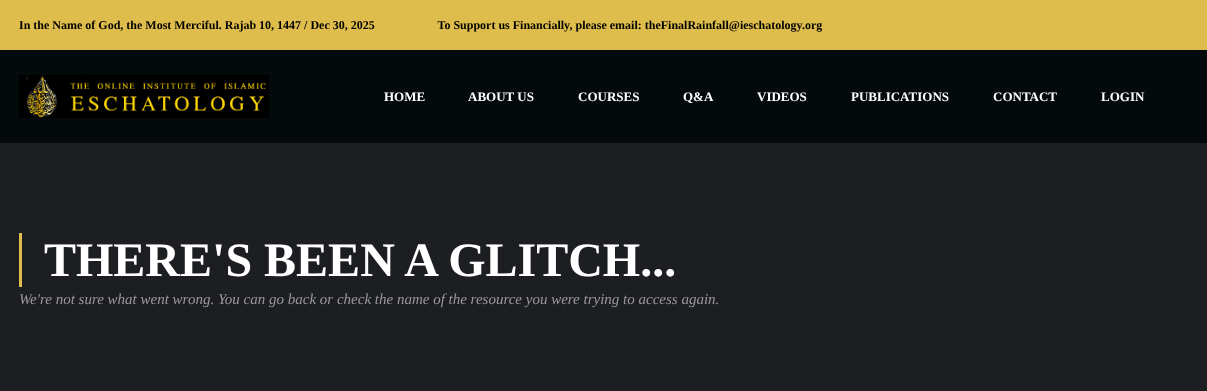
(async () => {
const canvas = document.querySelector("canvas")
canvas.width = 1207
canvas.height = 391
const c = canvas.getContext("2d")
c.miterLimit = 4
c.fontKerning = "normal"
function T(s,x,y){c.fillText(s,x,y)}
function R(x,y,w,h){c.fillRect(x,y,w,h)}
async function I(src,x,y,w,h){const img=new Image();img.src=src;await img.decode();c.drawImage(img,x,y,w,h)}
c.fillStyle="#1c1e22"
R(0,0,1207,391)
c.fillStyle="#040a0b"
R(0,50,1207,93)
c.fillStyle="#dfbd4c"
R(0,0,1207,50)
c.font="bold 12px Liberation Serif"
c.fillStyle="#000"
T("In the Name of God, the Most Merciful. Rajab 10, 1447 / Dec 30, 2025      To Support us Financially, please email: theFinalRainfall@ieschatology.org",19,29)
await I("1.png",19,75,250,43)
c.font="bold 13px Liberation Serif"
c.fillStyle="#fff"
T("HOME",384,101)
T("ABOUT US",468,101)
T("COURSES",578,101)
T("Q&A",683,101)
T("VIDEOS",757,101)
T("PUBLICATIONS",851,101)
T("CONTACT",993,101)
T("LOGIN",1101,101)
c.fillStyle="#dfbd4c"
R(19,233,3,54)
c.font="bold 48px Liberation Serif"
c.fillStyle="#fff"
T("THERE'S BEEN A GLITCH...",44,276)
c.font="italic 15px Liberation Serif"
c.fillStyle="#999"
T("We're not sure what went wrong. You can go back or check the name of the resource you were trying to access again.",19,304)
})()
